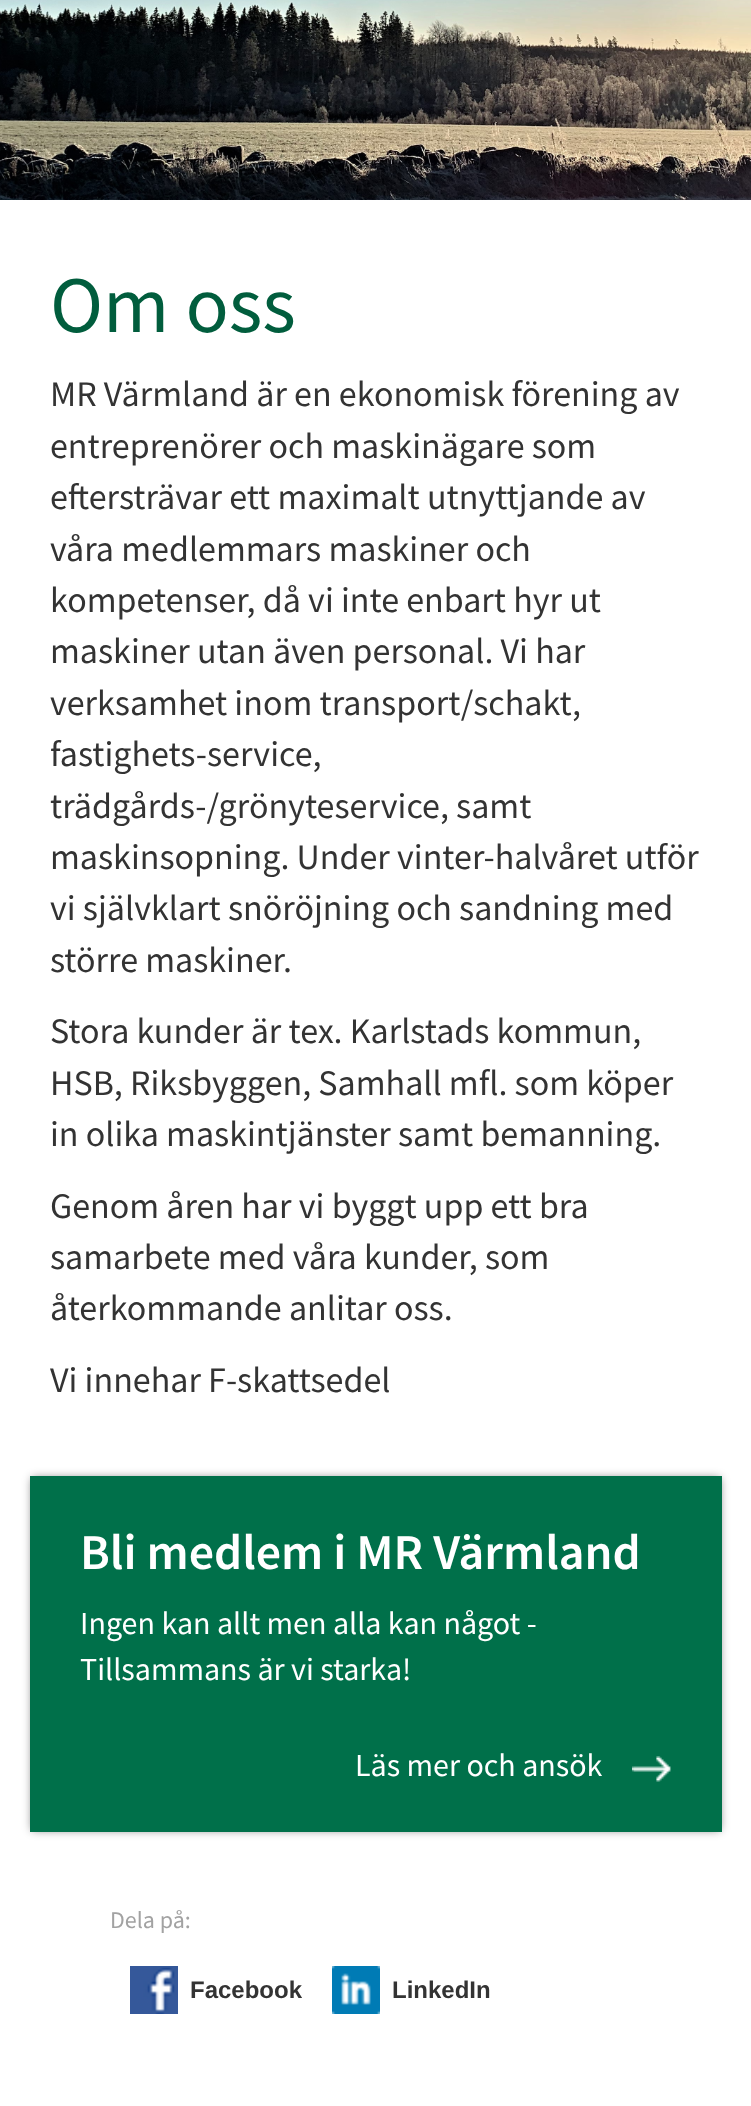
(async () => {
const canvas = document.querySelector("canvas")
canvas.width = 751
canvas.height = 2106
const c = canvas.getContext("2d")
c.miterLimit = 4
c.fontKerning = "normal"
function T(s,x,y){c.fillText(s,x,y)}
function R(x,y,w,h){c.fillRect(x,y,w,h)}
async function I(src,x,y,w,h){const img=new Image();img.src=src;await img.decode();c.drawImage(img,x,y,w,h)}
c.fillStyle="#fff"
R(0,0,751,2106)
await I("1.png",0,0,751,200)
c.font="80px Source Sans Pro"
c.fillStyle="#015d3d"
T("Om oss",50,332)
c.font="36px Source Sans Pro"
c.fillStyle="#333"
T("MR Värmland är en ekonomisk förening av",50,406)
T("entreprenörer och maskinägare som",50,458)
T("eftersträvar ett maximalt utnyttjande av",50,509)
T("våra medlemmars maskiner och",50,561)
T("kompetenser, då vi inte enbart hyr ut",50,612)
T("maskiner utan även personal. Vi har",50,663)
T("verksamhet inom transport/schakt,",50,715)
T("fastighets-service,",50,766)
T("trädgårds-/grönyteservice, samt",50,818)
T("maskinsopning. Under vinter-halvåret utför",50,869)
T("vi självklart snöröjning och sandning med",50,920)
T("större maskiner.",50,972)
T("Stora kunder är tex. Karlstads kommun,",50,1043)
T("HSB, Riksbyggen, Samhall mfl. som köper",50,1095)
T("in olika maskintjänster samt bemanning.",50,1146)
T("Genom åren har vi byggt upp ett bra",50,1218)
T("samarbete med våra kunder, som",50,1269)
T("återkommande anlitar oss.",50,1320)
T("Vi innehar F-skattsedel",50,1392)
c.fillStyle="#00000087"
c.filter="blur(5px)"
c.beginPath()
c.rect(32,1478,688,352)
c.fill()
c.filter="none"
c.fillStyle="#00704a"
R(30,1476,692,356)
await I("2.png",632,1756,39,26)
c.font="600 50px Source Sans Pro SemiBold"
c.fillStyle="#fff"
T("Bli medlem i MR Värmland",80,1569)
c.font="32px Source Sans Pro"
T("Ingen kan allt men alla kan något -",80,1634)
T("Tillsammans är vi starka!",80,1680)
T("Läs mer och ansök",355,1776)
c.font="24px Source Sans Pro"
c.fillStyle="#a2a2a2"
T("Dela på:",110,1928)
await I("3.png",130,1966,48,48)
c.font="bold 24px Liberation Sans"
c.fillStyle="#333"
T("Facebook",190,1998)
await I("4.png",332,1966,48,48)
T("LinkedIn",392,1998)
})()
